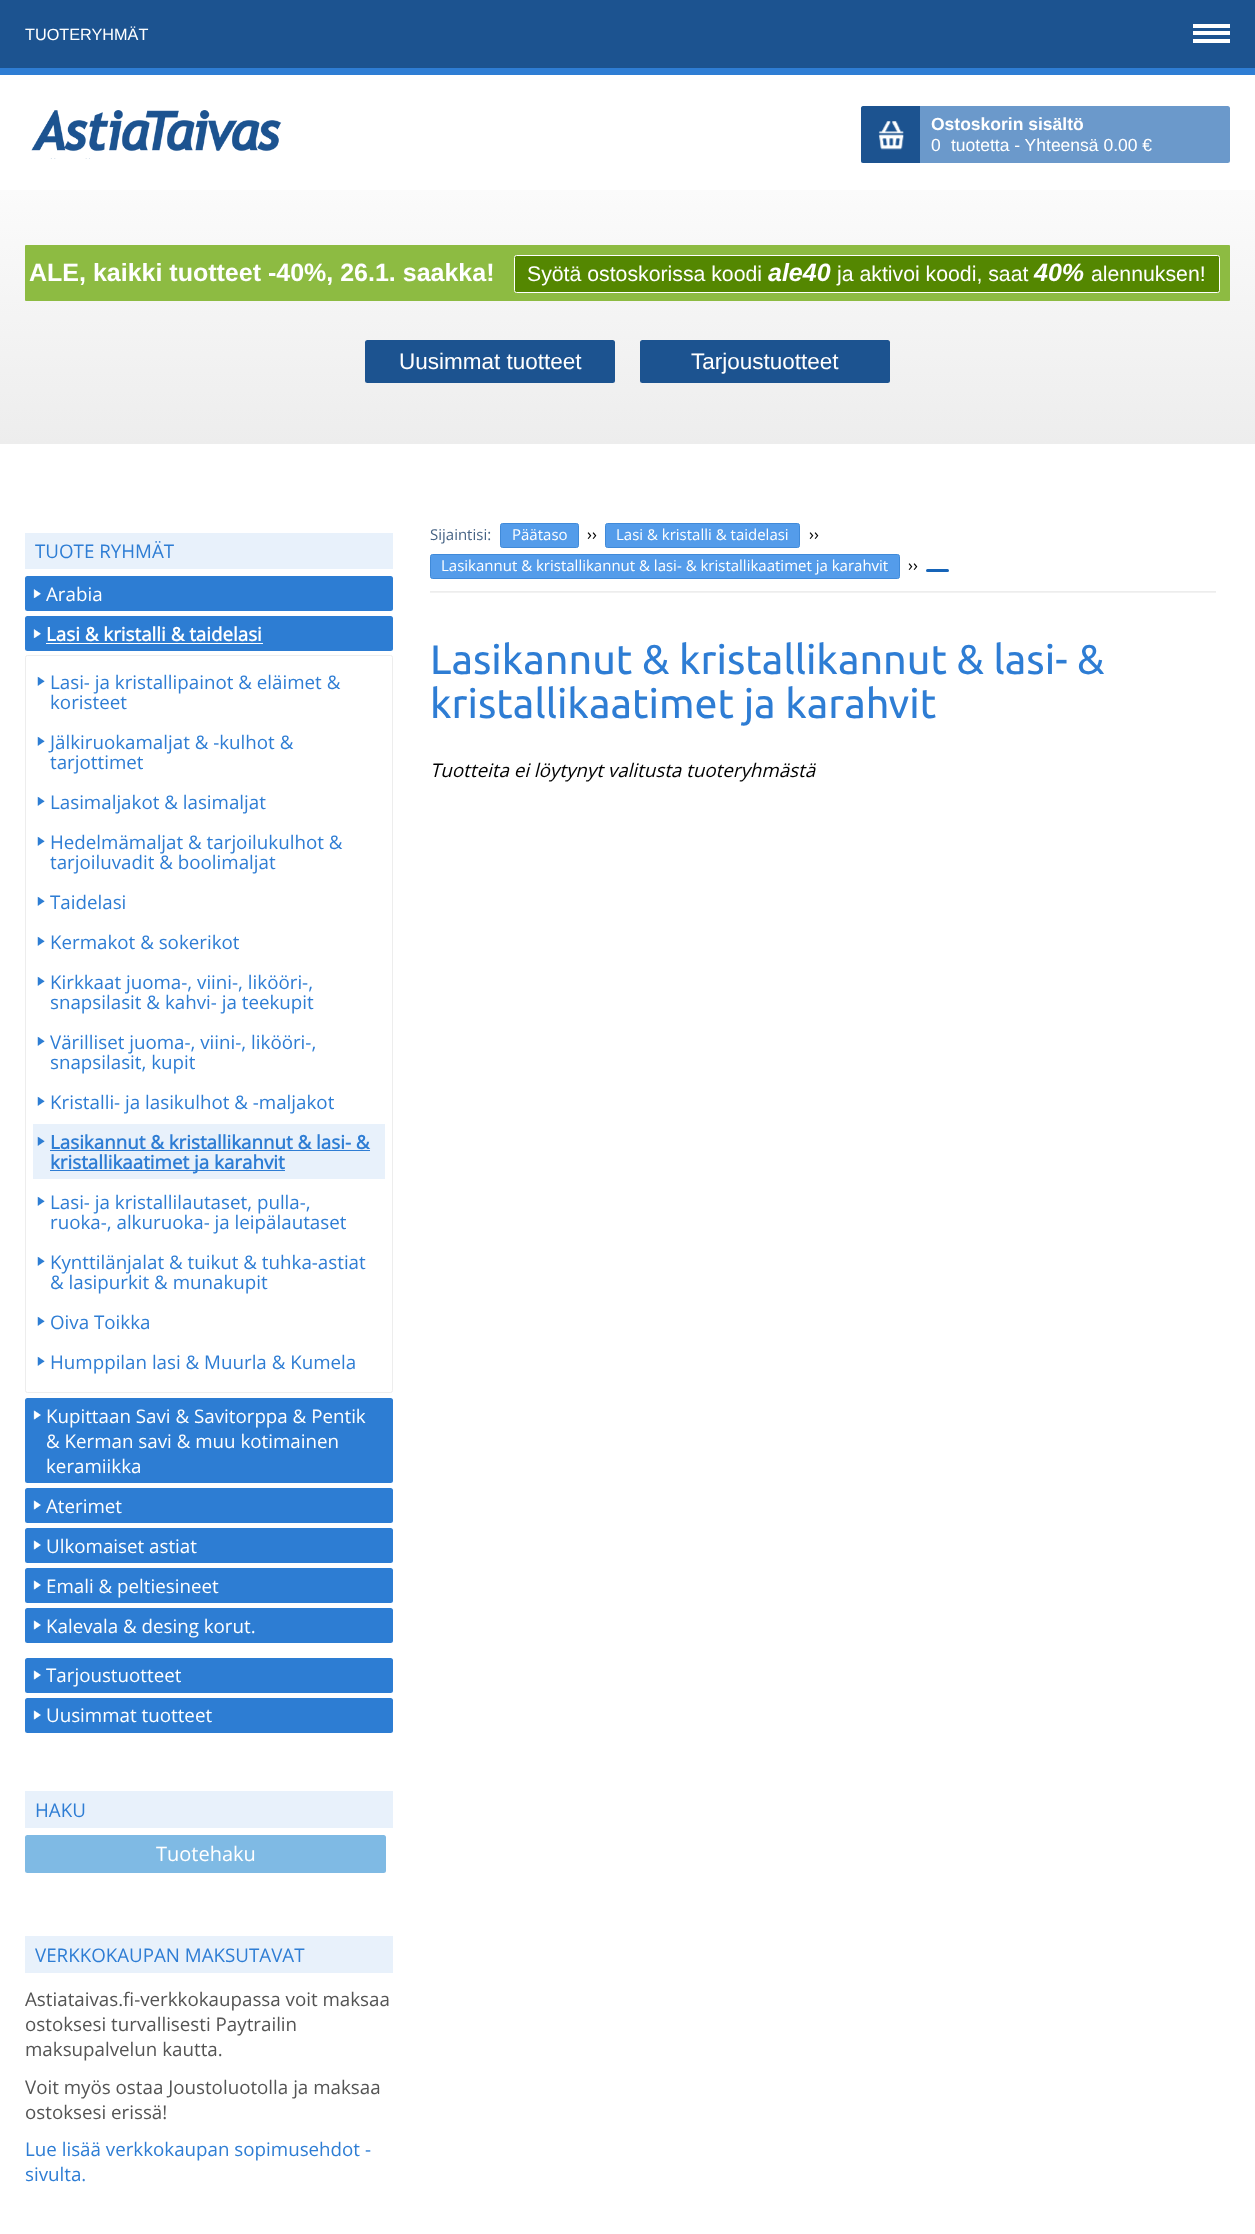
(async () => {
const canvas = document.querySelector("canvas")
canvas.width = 1255
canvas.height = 2234
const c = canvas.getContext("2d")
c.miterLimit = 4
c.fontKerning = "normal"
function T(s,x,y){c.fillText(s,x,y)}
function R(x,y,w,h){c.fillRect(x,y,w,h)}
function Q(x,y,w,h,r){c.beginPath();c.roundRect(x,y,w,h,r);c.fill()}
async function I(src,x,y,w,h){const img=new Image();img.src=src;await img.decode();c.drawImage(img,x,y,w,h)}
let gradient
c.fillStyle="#fff"
R(0,0,1255,2234)
c.fillStyle="#1c5390"
R(0,0,1255,68)
c.font="16.25px Liberation Sans"
c.fillStyle="#fff"
T("TUOTERYHMÄT",25,40)
R(1193,24,37,4)
R(1193,31,37,4)
R(1193,39,37,4)
c.fillStyle="#2e7dd4"
R(0,68,1255,7)
await I("1.png",31,110,251,49)
c.fillStyle="#6b99cb"
Q(861,106,369,57,2.5)
c.fillStyle="#1c5390"
c.beginPath()
c.roundRect(861,106,59,57,[2.5,0,0,2.5])
c.fill()
await I("2.png",878,121,26,29)
c.font="bold 17.5px Liberation Sans"
c.fillStyle="#fff"
T("Ostoskorin sisältö",931,130)
c.font="17.5px Liberation Sans"
T("0",931,151)
T("tuotetta - Yhteensä 0.00 €",951,151)
gradient = c.createLinearGradient(628,190,628,444)
gradient.addColorStop(0,"#fbfbfb")
gradient.addColorStop(1,"#ededed")
c.fillStyle = gradient
R(0,190,1255,254)
c.fillStyle="#8dbb42"
Q(25,245,1205,56,1)
c.font="bold 25px Liberation Sans"
c.fillStyle="#fff"
T("ALE, kaikki tuotteet -40%, 26.1. saakka!",29,281)
c.fillStyle="#548701"
c.beginPath()
c.roundRect(514.5,255.5,705,37,2)
c.fill()
c.strokeStyle="#fff"
c.stroke()
c.font="21.25px Liberation Sans"
c.fillStyle="#fff"
T("Syötä ostoskorissa koodi",527,281)
c.font="italic bold 25px Liberation Sans"
T("ale40",768,281)
c.font="21.25px Liberation Sans"
T("ja aktivoi koodi, saat",837,281)
c.font="italic bold 25px Liberation Sans"
T("40%",1034,281)
c.font="21.25px Liberation Sans"
T("alennuksen!",1091,281)
c.fillStyle="#1c5390"
Q(365,340,250,43,2.5)
c.font="22.5px Liberation Sans"
c.fillStyle="#fff"
T("Uusimmat tuotteet",399,369)
c.fillStyle="#1c5390"
Q(640,340,250,43,2.5)
c.fillStyle="#fff"
T("Tarjoustuotteet",691,369)
c.fillStyle="#e8f1fb"
R(25,533,368,36)
c.font="18.75px Open Sans"
c.fillStyle="#2e7dd4"
T("TUOTE RYHMÄT",35,558)
c.fillStyle="#2d7dd3"
Q(25,576,368,35,2.5)
await I("3.png",33,589,8,10)
c.fillStyle="#fff"
T("Arabia",46,601)
c.fillStyle="#2d7dd3"
Q(25,616,368,35,2.5)
await I("3.png",33,629,8,10)
c.font="bold 18.75px Open Sans"
c.fillStyle="#fff"
T("Lasi & kristalli & taidelasi",46,641)
R(46,643,217,1)
c.beginPath()
c.roundRect(25.5,655.5,367,737,2)
c.strokeStyle="#ededed"
c.stroke()
await I("4.png",37,676,8,10)
c.font="18.75px Open Sans"
c.fillStyle="#2e7dd4"
T("Lasi- ja kristallipainot & eläimet &",50,689)
T("koristeet",50,709)
await I("4.png",37,736,8,10)
T("Jälkiruokamaljat & -kulhot &",50,749)
T("tarjottimet",50,769)
await I("4.png",37,796,8,10)
T("Lasimaljakot & lasimaljat",50,809)
await I("4.png",37,836,8,10)
T("Hedelmämaljat & tarjoilukulhot &",50,849)
T("tarjoiluvadit & boolimaljat",50,869)
await I("4.png",37,896,8,10)
T("Taidelasi",50,909)
await I("4.png",37,936,8,10)
T("Kermakot & sokerikot",50,949)
await I("4.png",37,976,8,10)
T("Kirkkaat juoma-, viini-, likööri-,",50,989)
T("snapsilasit & kahvi- ja teekupit",50,1009)
await I("4.png",37,1036,8,10)
T("Värilliset juoma-, viini-, likööri-,",50,1049)
T("snapsilasit, kupit",50,1069)
await I("4.png",37,1096,8,10)
T("Kristalli- ja lasikulhot & -maljakot",50,1109)
c.fillStyle="#e8f1fb"
R(33,1124,352,55)
await I("5.png",37,1136,8,10)
c.font="bold 18.75px Open Sans"
c.fillStyle="#2e7dd4"
T("Lasikannut & kristallikannut & lasi- &",50,1149)
R(50,1150,320,1)
R(50,1170,235,1)
T("kristallikaatimet ja karahvit",50,1169)
await I("4.png",37,1196,8,10)
c.font="18.75px Open Sans"
T("Lasi- ja kristallilautaset, pulla-,",50,1209)
T("ruoka-, alkuruoka- ja leipälautaset",50,1229)
await I("4.png",37,1256,8,10)
T("Kynttilänjalat & tuikut & tuhka-astiat",50,1269)
T("& lasipurkit & munakupit",50,1289)
await I("4.png",37,1316,8,10)
T("Oiva Toikka",50,1329)
await I("4.png",37,1356,8,10)
T("Humppilan lasi & Muurla & Kumela",50,1369)
c.fillStyle="#2d7dd3"
Q(25,1398,368,85,2.5)
await I("6.png",33,1410,8,10)
c.fillStyle="#fff"
T("Kupittaan Savi & Savitorppa & Pentik",46,1423)
T("& Kerman savi & muu kotimainen",46,1448)
T("keramiikka",46,1473)
c.fillStyle="#2d7dd3"
Q(25,1488,368,35,2.5)
await I("6.png",33,1500,8,10)
c.fillStyle="#fff"
T("Aterimet",46,1513)
c.fillStyle="#2d7dd3"
Q(25,1528,368,35,2.5)
await I("6.png",33,1540,8,10)
c.fillStyle="#fff"
T("Ulkomaiset astiat",46,1553)
c.fillStyle="#2d7dd3"
Q(25,1568,368,35,2.5)
await I("6.png",33,1580,8,10)
c.fillStyle="#fff"
T("Emali & peltiesineet",46,1593)
c.fillStyle="#2d7dd3"
Q(25,1608,368,35,2.5)
await I("6.png",33,1620,8,10)
c.fillStyle="#fff"
T("Kalevala & desing korut.",46,1633)
c.fillStyle="#2d7dd3"
Q(25,1658,368,35,2.5)
await I("6.png",33,1670,8,10)
c.fillStyle="#fff"
T("Tarjoustuotteet",46,1682)
c.fillStyle="#2d7dd3"
Q(25,1698,368,35,2.5)
await I("6.png",33,1710,8,10)
c.fillStyle="#fff"
T("Uusimmat tuotteet",46,1722)
c.fillStyle="#e8f1fb"
R(25,1791,368,37)
c.fillStyle="#2e7dd4"
T("HAKU",35,1817)
c.fillStyle="#7fbae4"
Q(25,1835,361,38,2.5)
c.font="20px Open Sans"
c.fillStyle="#fff"
T("Tuotehaku",156,1861)
c.fillStyle="#e8f1fb"
R(25,1936,368,37)
c.font="18.75px Open Sans"
c.fillStyle="#2e7dd4"
T("VERKKOKAUPAN MAKSUTAVAT",35,1962)
c.fillStyle="#545454"
T("Astiataivas.fi-verkkokaupassa voit maksaa",25,2006)
T("ostoksesi turvallisesti Paytrailin",25,2031)
T("maksupalvelun kautta.",25,2056)
T("Voit myös ostaa Joustoluotolla ja maksaa",25,2094)
T("ostoksesi erissä!",25,2119)
c.fillStyle="#2e7dd4"
T("Lue lisää verkkokaupan sopimusehdot -",25,2156)
T("sivulta.",25,2181)
c.font="15px Open Sans"
c.fillStyle="#476485"
T("Sijaintisi:",430,540)
c.fillStyle="#549cea"
c.beginPath()
c.roundRect(500.5,523.5,78,24,2)
c.fill()
c.strokeStyle="#408ad9"
c.stroke()
c.fillStyle="#fff"
T("Päätaso",512,540)
c.font="16.25px Open Sans"
c.fillStyle="#000"
T("››",587,540)
c.fillStyle="#549cea"
c.beginPath()
c.roundRect(605.5,523.5,194,24,2)
c.fill()
c.stroke()
c.font="15px Open Sans"
c.fillStyle="#fff"
T("Lasi & kristalli & taidelasi",616,540)
c.font="16.25px Open Sans"
c.fillStyle="#000"
T("››",809,540)
c.fillStyle="#549cea"
c.beginPath()
c.roundRect(430.5,554.5,469,24,2)
c.fill()
c.stroke()
c.font="15px Open Sans"
c.fillStyle="#fff"
T("Lasikannut & kristallikannut & lasi- & kristallikaatimet ja karahvit",441,571)
c.font="16.25px Open Sans"
c.fillStyle="#000"
T("››",908,571)
c.fillStyle="#1664b8"
Q(926,569,23,3,1.5)
await I("7.png",430,591,786,2)
c.font="41.25px Ubuntu"
c.fillStyle="#2e7dd4"
T("Lasikannut & kristallikannut & lasi- &",430,674)
T("kristallikaatimet ja karahvit",430,718)
c.font="italic 18.75px Open Sans"
c.fillStyle="#000"
T("Tuotteita ei löytynyt valitusta tuoteryhmästä",430,777)
})()
